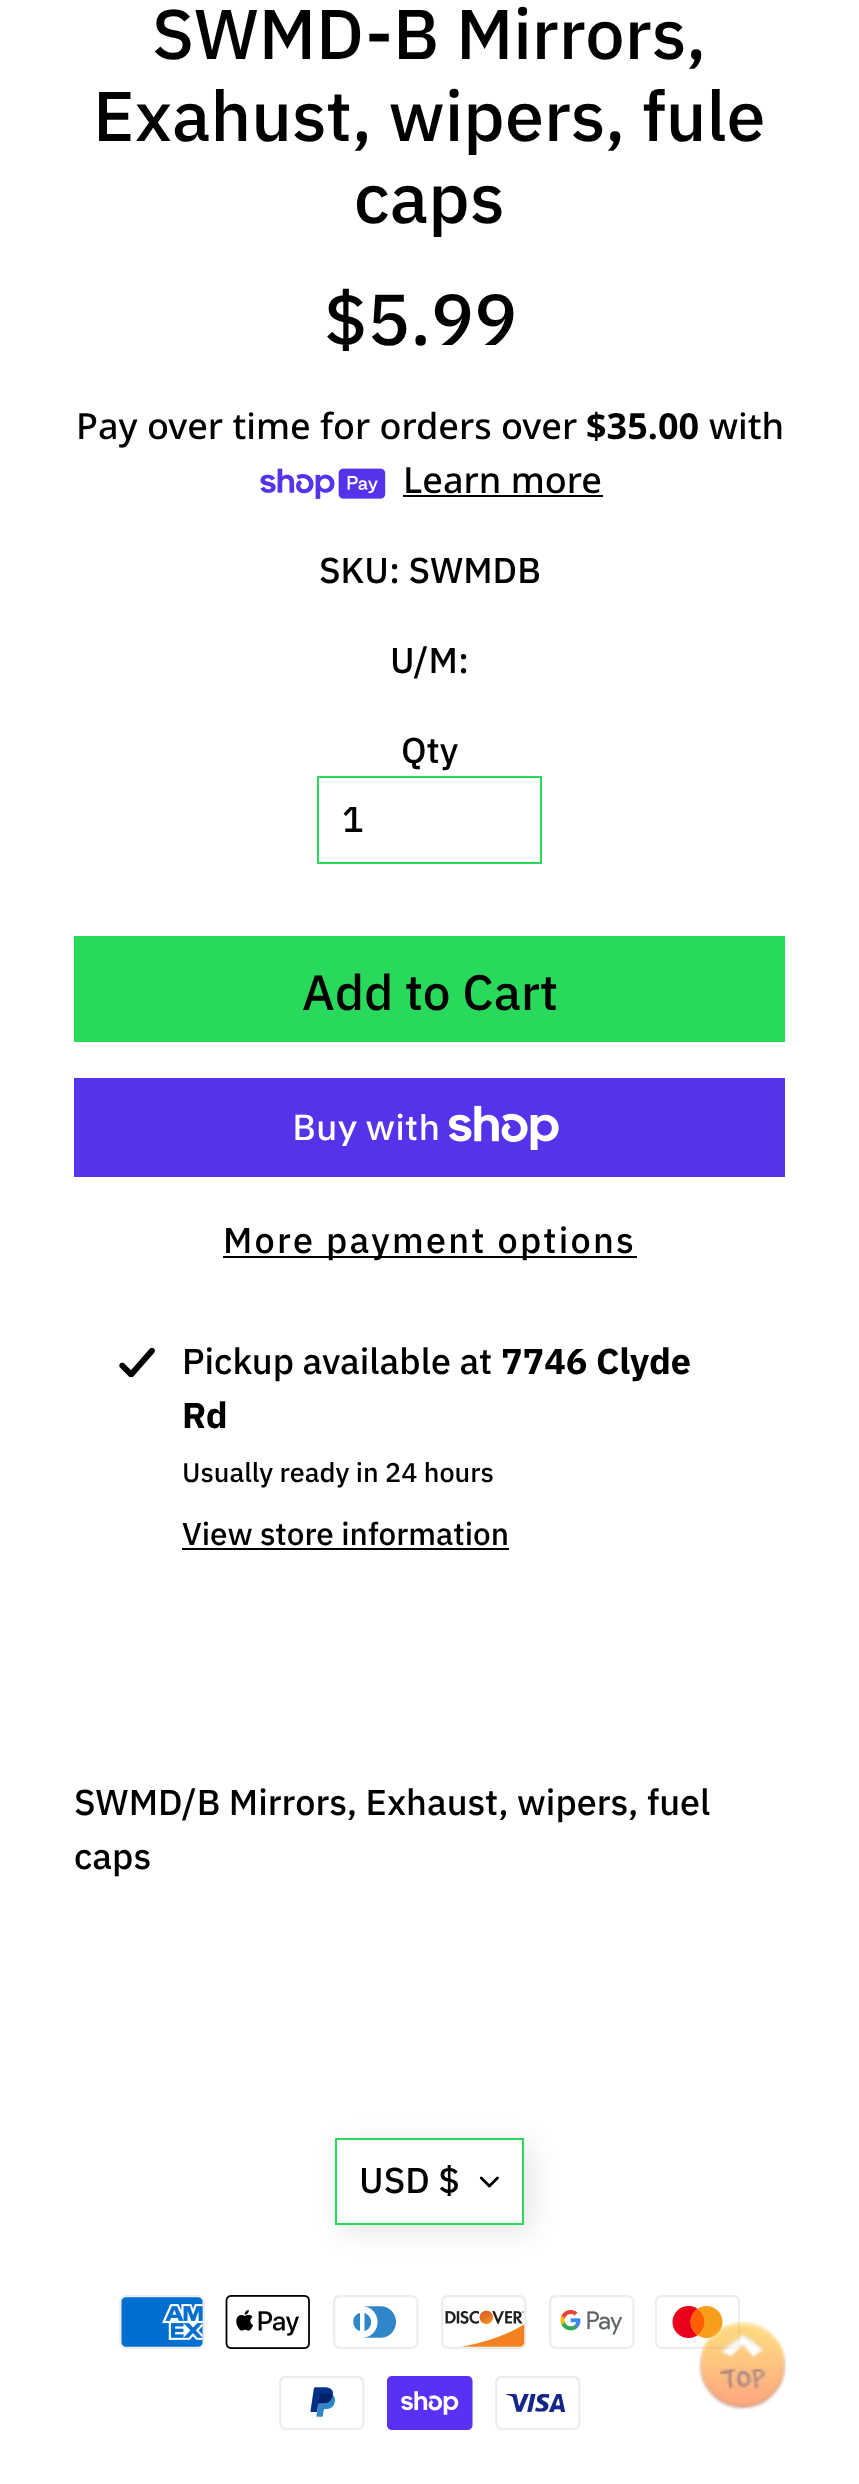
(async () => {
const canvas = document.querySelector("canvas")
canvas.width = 859
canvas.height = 2484
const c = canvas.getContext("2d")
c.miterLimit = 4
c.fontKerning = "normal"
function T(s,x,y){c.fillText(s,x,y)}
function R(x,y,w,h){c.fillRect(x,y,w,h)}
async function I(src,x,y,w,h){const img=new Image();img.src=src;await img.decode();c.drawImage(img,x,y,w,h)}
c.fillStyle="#fff"
R(0,0,859,2484)
c.font="500 70.25px IBM Plex Sans"
c.fillStyle="#000"
T("SWMD-B Mirrors,",152,59)
T("Exahust, wipers, fule",93,141)
T("caps",354,223)
c.font="500 72px IBM Plex Sans"
T("$5.99",324,345)
c.font="500 36px Noto Sans"
T("Pay over time for orders over",76,439)
c.font="bold 36px Noto Sans"
T("$35.00",586,439)
c.font="500 36px Noto Sans"
T("with",709,439)
await I("1.png",260,468,126,31)
T("Learn more",403,493)
R(403,495,200,2)
c.font="500 36px IBM Plex Sans"
T("SKU: SWMDB",319,583)
T("U/M:",390,673)
T("Qty",401,763)
c.strokeStyle="#29d95b"
c.lineWidth=2
c.strokeRect(318,777,223,86)
T("1",342,832)
c.fillStyle="#29d95b"
R(74,936,711,106)
c.font="500 49.5px IBM Plex Sans"
c.fillStyle="#000"
T("Add to Cart",302,1010)
c.fillStyle="#5433eb"
R(74,1078,711,99)
c.font="500 36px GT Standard"
c.fillStyle="#fff"
T("Buy with",292,1140)
await I("2.png",449,1105,110,45)
c.fillStyle="#000"
R(223,1256,414,2)
c.letterSpacing="2.25px"
c.font="500 36px IBM Plex Sans"
T("More payment options",223,1253)
await I("3.png",119,1348,36,29)
c.letterSpacing="0px"
T("Pickup available at",182,1374)
c.font="bold 36px IBM Plex Sans"
T("7746 Clyde",501,1374)
T("Rd",182,1428)
c.font="500 27px IBM Plex Sans"
T("Usually ready in 24 hours",182,1482)
c.font="500 31.5px IBM Plex Sans"
T("View store information",182,1545)
R(182,1548,327,2)
c.font="500 36px IBM Plex Sans"
T("SWMD/B Mirrors, Exhaust, wipers, fuel",74,1815)
T("caps",74,1869)
c.fillStyle="#0000001a"
c.filter="blur(13.5px)"
c.beginPath()
c.rect(342,2144,189,88)
c.fill()
c.filter="none"
c.fillStyle="#fff"
R(337,2140,185,83)
await I("4.png",479,2176,20,12)
c.strokeRect(336,2139,187,85)
c.fillStyle="#000"
T("USD $",359,2193)
await I("5.png",119,2295,86,54)
await I("6.png",225,2295,85,54)
await I("7.png",333,2295,86,54)
await I("8.png",441,2295,86,54)
await I("9.png",549,2295,86,54)
await I("10.png",655,2295,85,54)
await I("11.png",279,2376,86,54)
await I("12.png",387,2376,86,54)
await I("13.png",495,2376,86,54)
await I("14.png",698,2322,89,88)
})()
